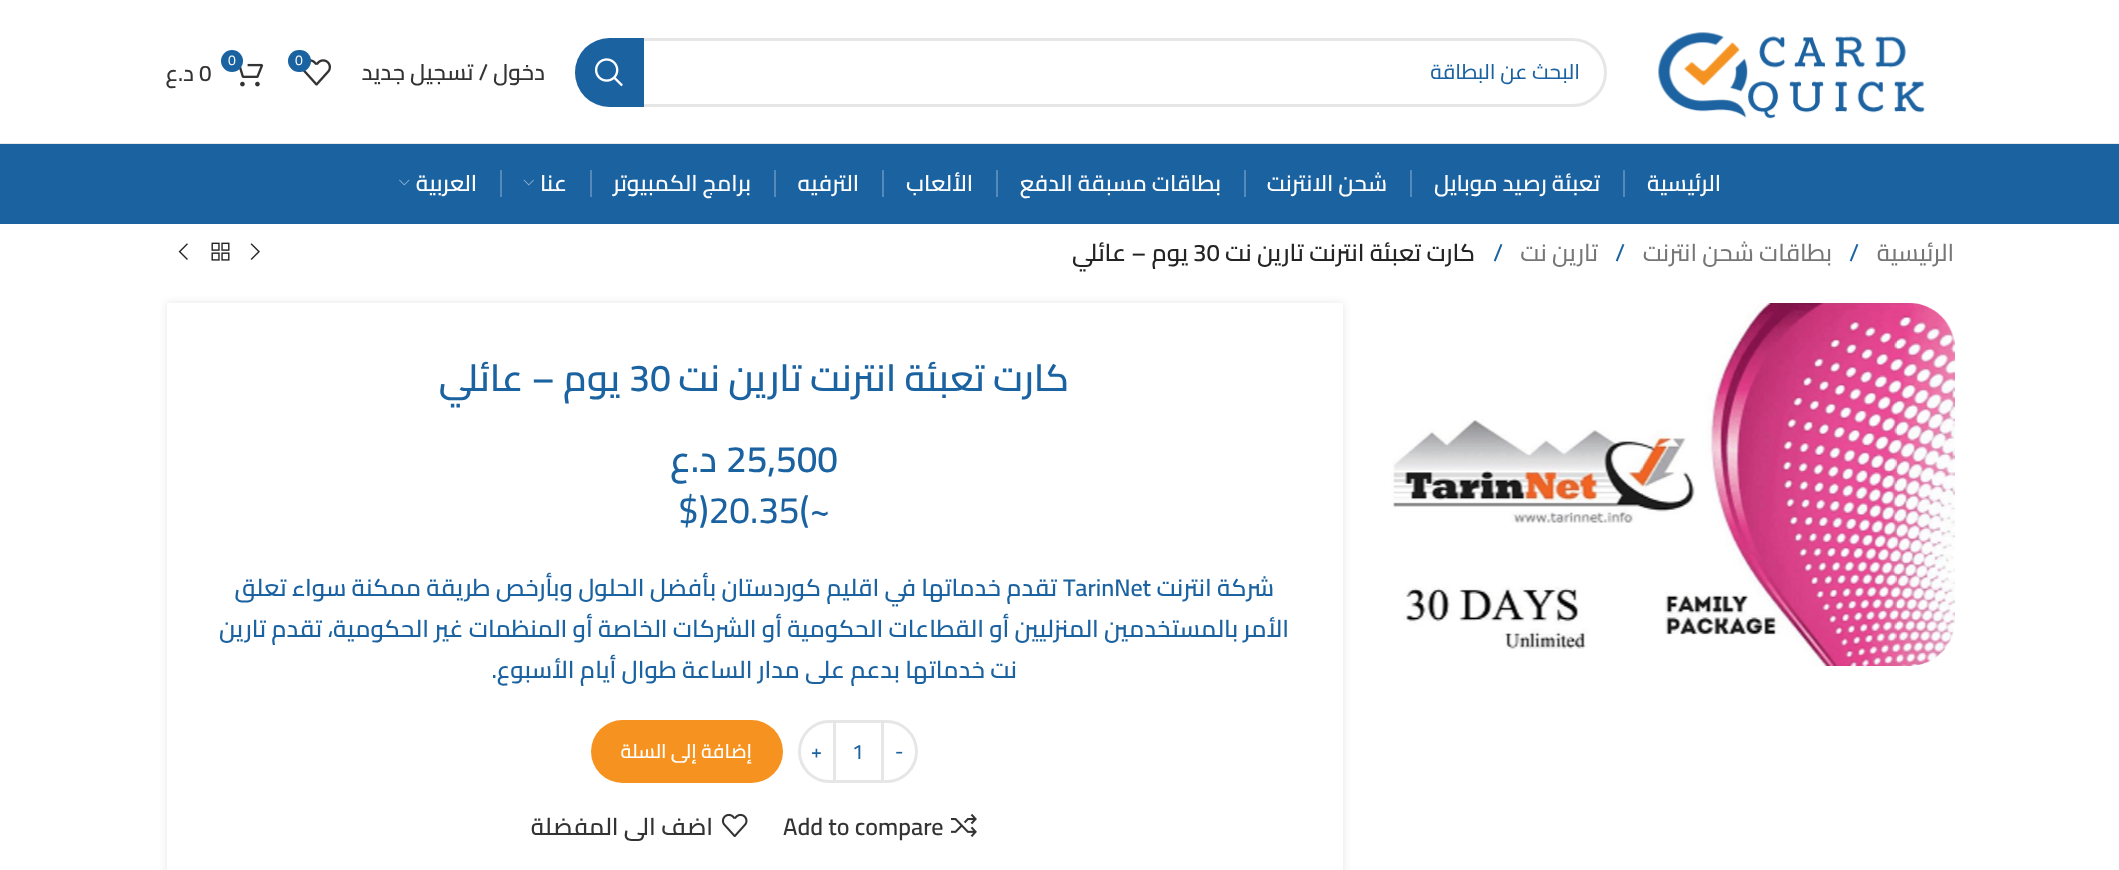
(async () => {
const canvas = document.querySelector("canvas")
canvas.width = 2119
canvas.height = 870
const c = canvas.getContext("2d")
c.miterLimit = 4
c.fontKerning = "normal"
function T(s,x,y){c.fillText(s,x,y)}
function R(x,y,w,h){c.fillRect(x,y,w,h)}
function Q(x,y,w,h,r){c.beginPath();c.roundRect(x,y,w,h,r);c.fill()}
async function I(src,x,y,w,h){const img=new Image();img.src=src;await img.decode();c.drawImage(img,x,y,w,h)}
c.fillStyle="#fff"
R(0,0,2119,870)
c.fillStyle="#e8e8e8"
R(0,143,2119,1)
await I("1.png",1658,32,267,87)
c.beginPath()
c.roundRect(576.5,39.5,1029,66,33)
c.strokeStyle="#e6e6e6"
c.lineWidth=3
c.stroke()
c.direction="rtl"
c.font="500 21px Cairo"
c.fillStyle="#1b62a1"
T("البحث عن البطاقة",1580,79)
c.beginPath()
c.roundRect(575,38,69,69,[34.5,0,0,34.5])
c.fill()
await I("2.png",595,58,28,29)
await I("3.png",303,59,28,27)
Q(288,50,23,22,11)
c.direction="ltr"
c.font="14px Cairo"
c.fillStyle="#fff"
T("0",295,65)
await I("4.png",239,63,25,24)
c.fillStyle="#1b62a1"
c.beginPath()
c.arc(232,61,11,0,7)
c.fill()
c.fillStyle="#fff"
T("0",228,65)
c.font="600 22.5px Cairo"
c.fillStyle="#333"
T("0",199,81)
c.direction="rtl"
T("د.ع",194,81)
T("دخول / تسجيل جديد",545,80)
c.fillStyle="#1b62a1"
R(0,144,2119,80)
c.fillStyle="#fff"
T("الرئيسية",1721,191)
c.fillStyle="#5489b9"
R(1623,170,2,27)
c.fillStyle="#fff"
T("تعبئة رصيد موبايل",1600,191)
c.fillStyle="#5489b9"
R(1410,170,2,27)
c.fillStyle="#fff"
T("شحن الانترنت",1387,191)
c.fillStyle="#5489b9"
R(1244,170,2,27)
c.fillStyle="#fff"
T("بطاقات مسبقة الدفع",1221,191)
c.fillStyle="#5489b9"
R(996,170,2,27)
c.fillStyle="#fff"
T("الألعاب",973,191)
c.fillStyle="#5489b9"
R(882,170,2,27)
c.fillStyle="#fff"
T("الترفيه",859,191)
c.fillStyle="#5489b9"
R(774,170,2,27)
c.fillStyle="#fff"
T("برامج الكمبيوتر",751,191)
c.fillStyle="#5489b9"
R(590,170,2,27)
c.fillStyle="#fff"
T("عنا",567,191)
await I("5.png",523,179,11,7)
c.fillStyle="#5489b9"
R(500,170,2,27)
c.fillStyle="#fff"
T("العربية",477,191)
await I("6.png",399,179,11,7)
c.font="500 24px Cairo"
c.fillStyle="#767676"
T("الرئيسية",1954,261)
c.direction="ltr"
c.fillStyle="#1b62a1"
T("/",1849,261)
c.direction="rtl"
c.fillStyle="#767676"
T("بطاقات شحن انترنت",1832,261)
c.direction="ltr"
c.fillStyle="#1b62a1"
T("/",1615,261)
c.direction="rtl"
c.fillStyle="#767676"
T("تارين نت",1598,261)
c.direction="ltr"
c.fillStyle="#1b62a1"
T("/",1493,261)
c.direction="rtl"
c.font="600 24px Cairo"
c.fillStyle="#242424"
T("كارت تعبئة انترنت تارين نت",1475,261)
c.direction="ltr"
T("30",1193,261)
c.direction="rtl"
T("يوم – عائلي",1188,261)
await I("7.png",250,243,10,17)
await I("8.png",211,242,19,19)
await I("9.png",178,243,10,17)
await I("10.png",1391,303,564,363)
c.fillStyle="#0000001a"
c.filter="blur(4px)"
c.beginPath()
c.rect(167,303,1176,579)
c.fill()
c.filter="none"
c.fillStyle="#fff"
R(167,303,1176,567)
c.font="600 37.5px Cairo"
c.fillStyle="#1b62a1"
T("كارت تعبئة انترنت تارين نت",1069,391)
c.direction="ltr"
T("30",629,391)
c.direction="rtl"
T("يوم – عائلي",620,391)
c.direction="ltr"
c.font="600 37px Cairo"
T("25,500",726,472)
c.direction="rtl"
T("د.ع",717,472)
c.direction="ltr"
c.font="500 37px Cairo"
T("$)20.35(~",678,523)
c.direction="rtl"
c.font="600 24px Cairo"
T("شركة انترنت",1274,596)
c.direction="ltr"
T("TarinNet",1063,596)
c.direction="rtl"
T("تقدم خدماتها في اقليم كوردستان بأفضل الحلول وبأرخص طريقة ممكنة سواء تعلق",1057,596)
T("الأمر بالمستخدمين المنزليين أو القطاعات الحكومية أو الشركات الخاصة أو المنظمات غير الحكومية، تقدم تارين",1289,637)
T("نت خدماتها بدعم على مدار الساعة طوال أيام الأسبوع.",1017,678)
c.beginPath()
c.roundRect(882.5,721.5,34,60,[0,30,30,0])
c.stroke()
c.direction="ltr"
c.font="600 19.5px Cairo"
T("-",895,758)
c.fillStyle="#e6e6e6"
R(836,720,45,3)
R(836,780,45,3)
c.font="500 21px Cairo"
c.fillStyle="#1b62a1"
T("1",852,759)
c.beginPath()
c.roundRect(799.5,721.5,35,60,[30,0,0,30])
c.stroke()
c.font="600 19.5px Cairo"
T("+",811,758)
c.fillStyle="#f69320"
Q(591,720,192,63,31.5)
c.direction="rtl"
c.fillStyle="#fff"
T("إضافة إلى السلة",752,758)
await I("11.png",951,813,26,24)
c.direction="ltr"
c.font="600 24px Cairo"
c.fillStyle="#333"
T("Add to compare",783,835)
await I("12.png",721,813,27,24)
c.direction="rtl"
T("اضف الى المفضلة",713,835)
})()
